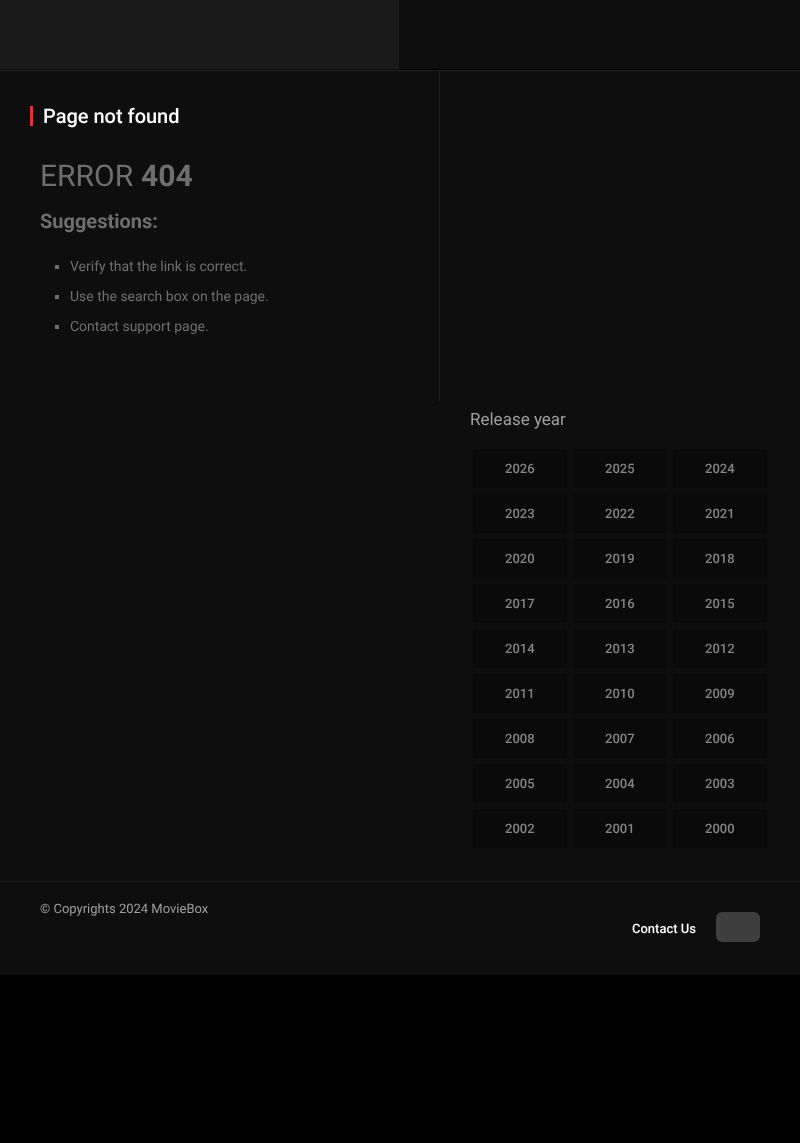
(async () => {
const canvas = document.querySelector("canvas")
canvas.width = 800
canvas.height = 1143
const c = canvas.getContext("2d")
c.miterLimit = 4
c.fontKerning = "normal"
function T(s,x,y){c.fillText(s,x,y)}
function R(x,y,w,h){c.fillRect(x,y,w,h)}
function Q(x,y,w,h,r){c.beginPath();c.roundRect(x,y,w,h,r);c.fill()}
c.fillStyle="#000"
R(0,0,800,1143)
c.fillStyle="#0e0e0e"
R(399,0,401,69)
c.fillStyle="#1a1a1a"
R(0,0,399,69)
c.fillStyle="#0d0d0d"
R(0,69,399,1)
c.fillStyle="#0e0e0e"
R(0,71,800,810)
c.fillStyle="#1f1f1f"
R(0,70,800,1)
R(0,881,800,1)
c.fillStyle="#212121"
R(439,71,1,330)
c.fillStyle="#d33"
R(30,106,3,20)
c.font="500 20px Roboto"
c.fillStyle="#fff"
T("Page not found",43,123)
c.font="30px Roboto"
c.fillStyle="#6e6e6e"
T("ERROR",40,186)
c.font="bold 30px Roboto"
T("404",141,186)
c.font="bold 20px Roboto"
T("Suggestions:",40,228)
R(55,265,4,4)
c.font="14px Roboto"
T("Verify that the link is correct.",70,271)
R(55,295,4,4)
T("Use the search box on the page.",70,301)
R(55,325,4,4)
T("Contact support page.",70,331)
c.font="17px Roboto"
c.fillStyle="#9f9f9f"
T("Release year",470,425)
c.fillStyle="#0a0a0a"
R(473,449,94,39)
c.font="500 13px Roboto"
c.fillStyle="#858585"
T("2026",505,473)
c.fillStyle="#0a0a0a"
R(573,449,94,39)
c.fillStyle="#858585"
T("2025",605,473)
c.fillStyle="#0a0a0a"
R(673,449,94,39)
c.fillStyle="#858585"
T("2024",705,473)
c.fillStyle="#0a0a0a"
R(473,494,94,39)
c.fillStyle="#858585"
T("2023",505,518)
c.fillStyle="#0a0a0a"
R(573,494,94,39)
c.fillStyle="#858585"
T("2022",605,518)
c.fillStyle="#0a0a0a"
R(673,494,94,39)
c.fillStyle="#858585"
T("2021",705,518)
c.fillStyle="#0a0a0a"
R(473,539,94,39)
c.fillStyle="#858585"
T("2020",505,563)
c.fillStyle="#0a0a0a"
R(573,539,94,39)
c.fillStyle="#858585"
T("2019",605,563)
c.fillStyle="#0a0a0a"
R(673,539,94,39)
c.fillStyle="#858585"
T("2018",705,563)
c.fillStyle="#0a0a0a"
R(473,584,94,39)
c.fillStyle="#858585"
T("2017",505,608)
c.fillStyle="#0a0a0a"
R(573,584,94,39)
c.fillStyle="#858585"
T("2016",605,608)
c.fillStyle="#0a0a0a"
R(673,584,94,39)
c.fillStyle="#858585"
T("2015",705,608)
c.fillStyle="#0a0a0a"
R(473,629,94,39)
c.fillStyle="#858585"
T("2014",505,653)
c.fillStyle="#0a0a0a"
R(573,629,94,39)
c.fillStyle="#858585"
T("2013",605,653)
c.fillStyle="#0a0a0a"
R(673,629,94,39)
c.fillStyle="#858585"
T("2012",705,653)
c.fillStyle="#0a0a0a"
R(473,674,94,39)
c.fillStyle="#858585"
T("2011",505,698)
c.fillStyle="#0a0a0a"
R(573,674,94,39)
c.fillStyle="#858585"
T("2010",605,698)
c.fillStyle="#0a0a0a"
R(673,674,94,39)
c.fillStyle="#858585"
T("2009",705,698)
c.fillStyle="#0a0a0a"
R(473,719,94,39)
c.fillStyle="#858585"
T("2008",505,743)
c.fillStyle="#0a0a0a"
R(573,719,94,39)
c.fillStyle="#858585"
T("2007",605,743)
c.fillStyle="#0a0a0a"
R(673,719,94,39)
c.fillStyle="#858585"
T("2006",705,743)
c.fillStyle="#0a0a0a"
R(473,764,94,39)
c.fillStyle="#858585"
T("2005",505,788)
c.fillStyle="#0a0a0a"
R(573,764,94,39)
c.fillStyle="#858585"
T("2004",605,788)
c.fillStyle="#0a0a0a"
R(673,764,94,39)
c.fillStyle="#858585"
T("2003",705,788)
c.fillStyle="#0a0a0a"
R(473,809,94,39)
c.fillStyle="#858585"
T("2002",505,833)
c.fillStyle="#0a0a0a"
R(573,809,94,39)
c.fillStyle="#858585"
T("2001",605,833)
c.fillStyle="#0a0a0a"
R(673,809,94,39)
c.fillStyle="#858585"
T("2000",705,833)
c.fillStyle="#0e0e0e"
R(0,882,800,93)
c.font="13px Roboto"
c.fillStyle="#9f9f9f"
T("© Copyrights 2024 MovieBox",40,913)
c.font="500 13px Roboto"
c.fillStyle="#fff"
T("Contact Us",632,933)
c.fillStyle="#3e3e3e"
Q(716,912,44,30,6)
})()
